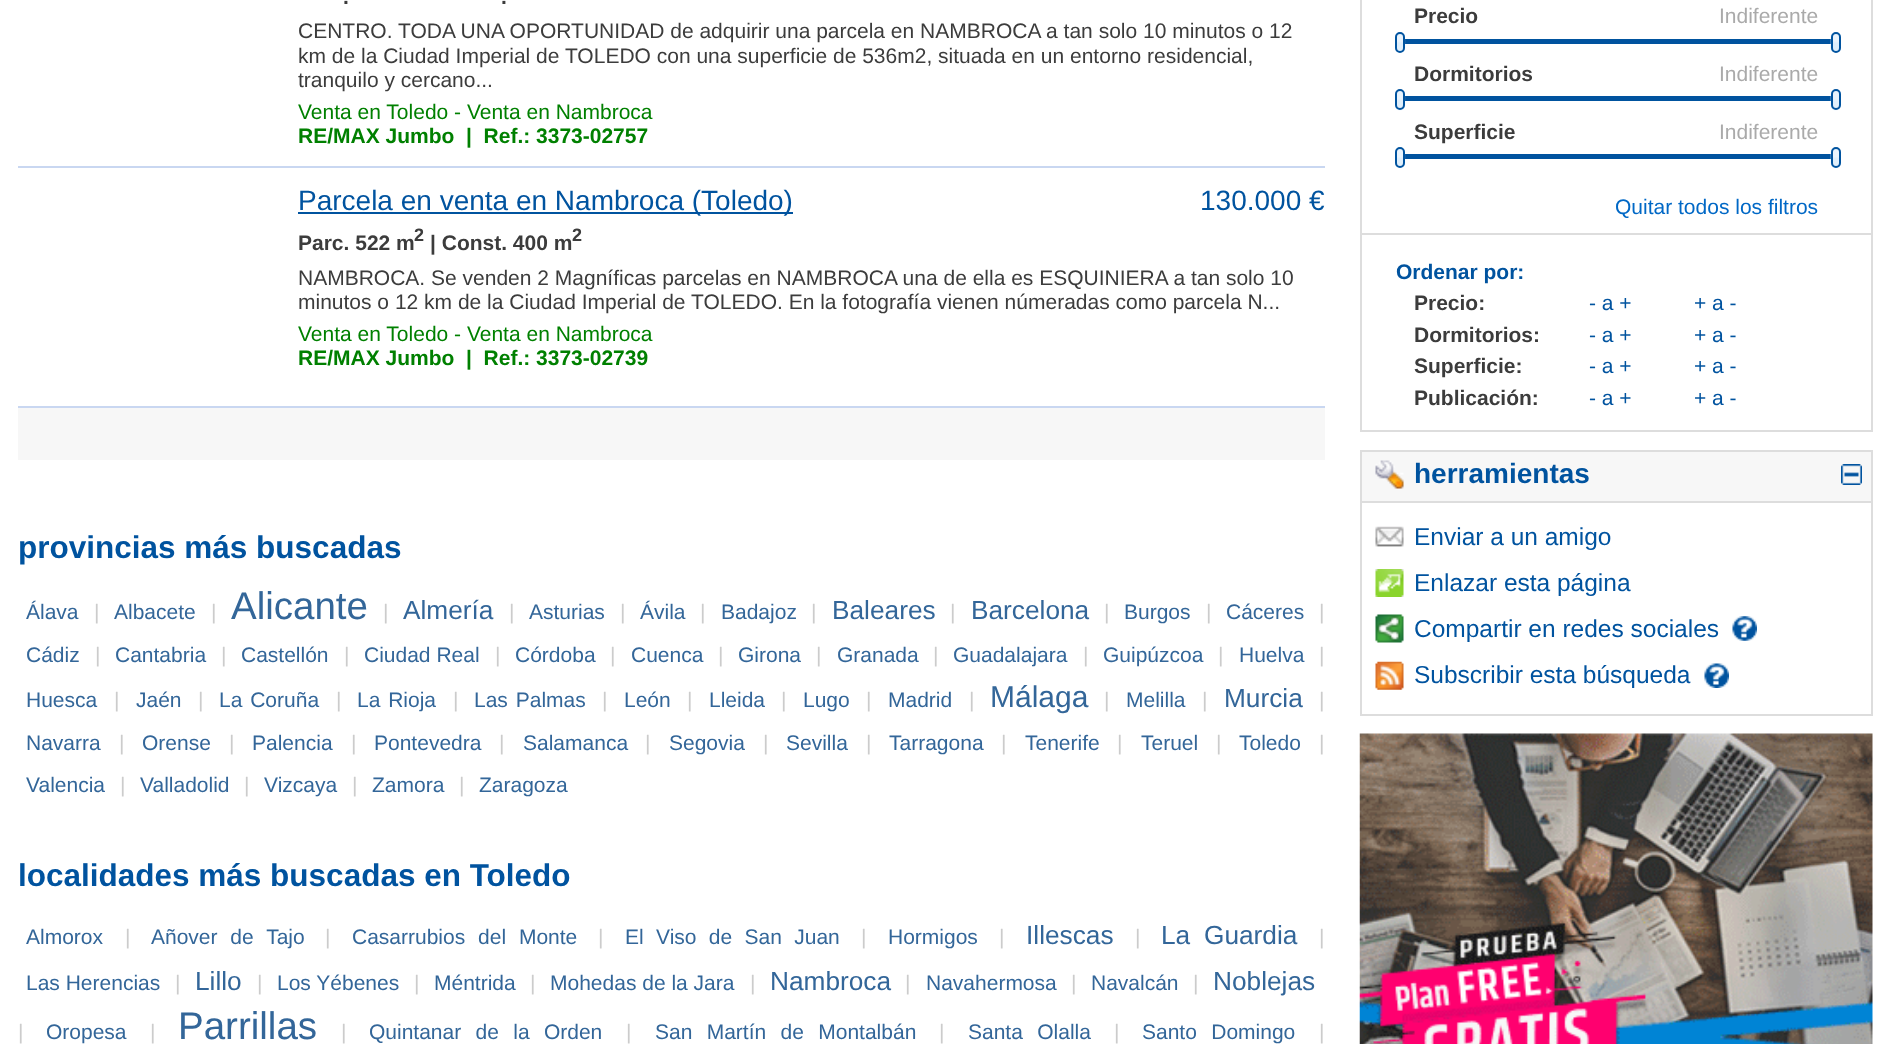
(async () => {
const canvas = document.querySelector("canvas")
canvas.width = 1889
canvas.height = 1044
const c = canvas.getContext("2d")
c.miterLimit = 4
c.fontKerning = "normal"
function T(s,x,y){c.fillText(s,x,y)}
function R(x,y,w,h){c.fillRect(x,y,w,h)}
async function I(src,x,y,w,h){const img=new Image();img.src=src;await img.decode();c.drawImage(img,x,y,w,h)}
c.fillStyle="#fff"
R(0,0,1889,1044)
c.fillStyle="#c9d7f1"
R(18,166,1307,2)
c.font="bold 21px Liberation Sans"
c.fillStyle="#3c3c3c"
T(".",343,4)
T(".",501,4)
c.font="21px Liberation Sans"
T("CENTRO. TODA UNA OPORTUNIDAD de adquirir una parcela en NAMBROCA a tan solo 10 minutos o 12",298,38)
T("km de la Ciudad Imperial de TOLEDO con una superficie de 536m2, situada en un entorno residencial,",298,63)
T("tranquilo y cercano...",298,87)
c.fillStyle="#008000"
T("Venta en Toledo - Venta en Nambroca",298,119)
c.font="bold 21px Liberation Sans"
T("RE/MAX Jumbo",298,143)
T("|  Ref.: 3373-02757",466,143)
c.fillStyle="#c9d7f1"
R(18,406,1307,2)
c.fillStyle="#00539f"
R(298,212,495,2)
c.font="28px Liberation Sans"
T("Parcela en venta en Nambroca (Toledo)",298,210)
c.font="bold 21px Liberation Sans"
c.fillStyle="#3c3c3c"
T("Parc. 522 m",298,250)
c.font="bold 18px Liberation Sans"
T("2",414,241)
c.font="bold 21px Liberation Sans"
T("| Const. 400 m",430,250)
c.font="bold 18px Liberation Sans"
T("2",572,241)
c.font="21px Liberation Sans"
T("NAMBROCA. Se venden 2 Magníficas parcelas en NAMBROCA una de ella es ESQUINIERA a tan solo 10",298,285)
T("minutos o 12 km de la Ciudad Imperial de TOLEDO. En la fotografía vienen númeradas como parcela N...",298,309)
c.fillStyle="#008000"
T("Venta en Toledo - Venta en Nambroca",298,341)
c.font="bold 21px Liberation Sans"
T("RE/MAX Jumbo",298,365)
T("|  Ref.: 3373-02739",466,365)
c.font="28px Liberation Sans"
c.fillStyle="#00539f"
T("130.000 €",1200,210)
c.fillStyle="#f7f7f7"
R(18,408,1307,52)
c.font="bold 31.5px Liberation Sans"
c.fillStyle="#00539f"
T("provincias más buscadas",18,558)
c.font="21px Liberation Sans"
c.fillStyle="#369"
T("Álava",26,619)
c.fillStyle="#ccc"
T("|",94,619)
c.fillStyle="#369"
T("Albacete",114,619)
c.fillStyle="#ccc"
T("|",211,619)
c.font="38.5px Liberation Sans"
c.fillStyle="#369"
T("Alicante",231,619)
c.font="21px Liberation Sans"
c.fillStyle="#ccc"
T("|",383,619)
c.font="26.25px Liberation Sans"
c.fillStyle="#369"
T("Almería",403,619)
c.font="21px Liberation Sans"
c.fillStyle="#ccc"
T("|",509,619)
c.fillStyle="#369"
T("Asturias",529,619)
c.fillStyle="#ccc"
T("|",620,619)
c.fillStyle="#369"
T("Ávila",640,619)
c.fillStyle="#ccc"
T("|",700,619)
c.fillStyle="#369"
T("Badajoz",721,619)
c.fillStyle="#ccc"
T("|",811,619)
c.font="26.25px Liberation Sans"
c.fillStyle="#369"
T("Baleares",832,619)
c.font="21px Liberation Sans"
c.fillStyle="#ccc"
T("|",950,619)
c.font="26.25px Liberation Sans"
c.fillStyle="#369"
T("Barcelona",971,619)
c.font="21px Liberation Sans"
c.fillStyle="#ccc"
T("|",1104,619)
c.fillStyle="#369"
T("Burgos",1124,619)
c.fillStyle="#ccc"
T("|",1206,619)
c.fillStyle="#369"
T("Cáceres",1226,619)
c.fillStyle="#ccc"
T("|",1319,619)
c.fillStyle="#369"
T("Cádiz",26,662)
c.fillStyle="#ccc"
T("|",95,662)
c.fillStyle="#369"
T("Cantabria",115,662)
c.fillStyle="#ccc"
T("|",221,662)
c.fillStyle="#369"
T("Castellón",241,662)
c.fillStyle="#ccc"
T("|",344,662)
c.fillStyle="#369"
T("Ciudad Real",364,662)
c.fillStyle="#ccc"
T("|",495,662)
c.fillStyle="#369"
T("Córdoba",515,662)
c.fillStyle="#ccc"
T("|",610,662)
c.fillStyle="#369"
T("Cuenca",631,662)
c.fillStyle="#ccc"
T("|",718,662)
c.fillStyle="#369"
T("Girona",738,662)
c.fillStyle="#ccc"
T("|",816,662)
c.fillStyle="#369"
T("Granada",837,662)
c.fillStyle="#ccc"
T("|",933,662)
c.fillStyle="#369"
T("Guadalajara",953,662)
c.fillStyle="#ccc"
T("|",1083,662)
c.fillStyle="#369"
T("Guipúzcoa",1103,662)
c.fillStyle="#ccc"
T("|",1218,662)
c.fillStyle="#369"
T("Huelva",1239,662)
c.fillStyle="#ccc"
T("|",1319,662)
c.fillStyle="#369"
T("Huesca",26,707)
c.fillStyle="#ccc"
T("|",114,707)
c.fillStyle="#369"
T("Jaén",136,707)
c.fillStyle="#ccc"
T("|",198,707)
c.wordSpacing="2px"
c.fillStyle="#369"
T("La Coruña",219,707)
c.wordSpacing="0px"
c.fillStyle="#ccc"
T("|",336,707)
c.wordSpacing="2px"
c.fillStyle="#369"
T("La Rioja",357,707)
c.wordSpacing="0px"
c.fillStyle="#ccc"
T("|",453,707)
c.wordSpacing="2px"
c.fillStyle="#369"
T("Las Palmas",474,707)
c.wordSpacing="0px"
c.fillStyle="#ccc"
T("|",602,707)
c.fillStyle="#369"
T("León",624,707)
c.fillStyle="#ccc"
T("|",687,707)
c.fillStyle="#369"
T("Lleida",709,707)
c.fillStyle="#ccc"
T("|",781,707)
c.fillStyle="#369"
T("Lugo",803,707)
c.fillStyle="#ccc"
T("|",866,707)
c.fillStyle="#369"
T("Madrid",888,707)
c.fillStyle="#ccc"
T("|",969,707)
c.font="30px Liberation Sans"
c.fillStyle="#369"
T("Málaga",990,707)
c.font="21px Liberation Sans"
c.fillStyle="#ccc"
T("|",1104,707)
c.fillStyle="#369"
T("Melilla",1126,707)
c.fillStyle="#ccc"
T("|",1202,707)
c.font="26.25px Liberation Sans"
c.fillStyle="#369"
T("Murcia",1224,707)
c.font="21px Liberation Sans"
c.fillStyle="#ccc"
T("|",1319,707)
c.fillStyle="#369"
T("Navarra",26,750)
c.fillStyle="#ccc"
T("|",119,750)
c.fillStyle="#369"
T("Orense",142,750)
c.fillStyle="#ccc"
T("|",229,750)
c.fillStyle="#369"
T("Palencia",252,750)
c.fillStyle="#ccc"
T("|",351,750)
c.fillStyle="#369"
T("Pontevedra",374,750)
c.fillStyle="#ccc"
T("|",499,750)
c.fillStyle="#369"
T("Salamanca",523,750)
c.fillStyle="#ccc"
T("|",645,750)
c.fillStyle="#369"
T("Segovia",669,750)
c.fillStyle="#ccc"
T("|",763,750)
c.fillStyle="#369"
T("Sevilla",786,750)
c.fillStyle="#ccc"
T("|",866,750)
c.fillStyle="#369"
T("Tarragona",889,750)
c.fillStyle="#ccc"
T("|",1001,750)
c.fillStyle="#369"
T("Tenerife",1025,750)
c.fillStyle="#ccc"
T("|",1117,750)
c.fillStyle="#369"
T("Teruel",1141,750)
c.fillStyle="#ccc"
T("|",1216,750)
c.fillStyle="#369"
T("Toledo",1239,750)
c.fillStyle="#ccc"
T("|",1319,750)
c.fillStyle="#369"
T("Valencia",26,792)
c.fillStyle="#ccc"
T("|",120,792)
c.fillStyle="#369"
T("Valladolid",140,792)
c.fillStyle="#ccc"
T("|",244,792)
c.fillStyle="#369"
T("Vizcaya",264,792)
c.fillStyle="#ccc"
T("|",352,792)
c.fillStyle="#369"
T("Zamora",372,792)
c.fillStyle="#ccc"
T("|",459,792)
c.fillStyle="#369"
T("Zaragoza",479,792)
c.font="bold 31.5px Liberation Sans"
c.fillStyle="#00539f"
T("localidades más buscadas en Toledo",18,886)
c.font="21px Liberation Sans"
c.fillStyle="#369"
T("Almorox",26,944)
c.fillStyle="#ccc"
T("|",125,944)
c.wordSpacing="7px"
c.fillStyle="#369"
T("Añover de Tajo",151,944)
c.wordSpacing="0px"
c.fillStyle="#ccc"
T("|",325,944)
c.wordSpacing="7px"
c.fillStyle="#369"
T("Casarrubios del Monte",352,944)
c.wordSpacing="0px"
c.fillStyle="#ccc"
T("|",598,944)
c.wordSpacing="6.5px"
c.fillStyle="#369"
T("El Viso de San Juan",625,944)
c.wordSpacing="0px"
c.fillStyle="#ccc"
T("|",861,944)
c.fillStyle="#369"
T("Hormigos",888,944)
c.fillStyle="#ccc"
T("|",999,944)
c.font="26.25px Liberation Sans"
c.fillStyle="#369"
T("Illescas",1026,944)
c.font="21px Liberation Sans"
c.fillStyle="#ccc"
T("|",1135,944)
c.wordSpacing="6.5px"
c.font="26.25px Liberation Sans"
c.fillStyle="#369"
T("La Guardia",1161,944)
c.wordSpacing="0px"
c.font="21px Liberation Sans"
c.fillStyle="#ccc"
T("|",1319,944)
c.fillStyle="#369"
T("Las Herencias",26,990)
c.fillStyle="#ccc"
T("|",175,990)
c.font="26.25px Liberation Sans"
c.fillStyle="#369"
T("Lillo",195,990)
c.font="21px Liberation Sans"
c.fillStyle="#ccc"
T("|",257,990)
c.fillStyle="#369"
T("Los Yébenes",277,990)
c.fillStyle="#ccc"
T("|",414,990)
c.fillStyle="#369"
T("Méntrida",434,990)
c.fillStyle="#ccc"
T("|",530,990)
c.fillStyle="#369"
T("Mohedas de la Jara",550,990)
c.fillStyle="#ccc"
T("|",750,990)
c.font="26.25px Liberation Sans"
c.fillStyle="#369"
T("Nambroca",770,990)
c.font="21px Liberation Sans"
c.fillStyle="#ccc"
T("|",905,990)
c.fillStyle="#369"
T("Navahermosa",926,990)
c.fillStyle="#ccc"
T("|",1071,990)
c.fillStyle="#369"
T("Navalcán",1091,990)
c.fillStyle="#ccc"
T("|",1193,990)
c.font="26.25px Liberation Sans"
c.fillStyle="#369"
T("Noblejas",1213,990)
c.font="21px Liberation Sans"
c.fillStyle="#ccc"
T("|",18,1039)
c.fillStyle="#369"
T("Oropesa",46,1039)
c.fillStyle="#ccc"
T("|",150,1039)
c.font="38.5px Liberation Sans"
c.fillStyle="#369"
T("Parrillas",178,1039)
c.font="21px Liberation Sans"
c.fillStyle="#ccc"
T("|",341,1039)
c.wordSpacing="8.5px"
c.fillStyle="#369"
T("Quintanar de la Orden",369,1039)
c.wordSpacing="0px"
c.fillStyle="#ccc"
T("|",626,1039)
c.wordSpacing="8.5px"
c.fillStyle="#369"
T("San Martín de Montalbán",655,1039)
c.wordSpacing="0px"
c.fillStyle="#ccc"
T("|",939,1039)
c.wordSpacing="8.5px"
c.fillStyle="#369"
T("Santa Olalla",968,1039)
c.wordSpacing="0px"
c.fillStyle="#ccc"
T("|",1114,1039)
c.wordSpacing="8.5px"
c.fillStyle="#369"
T("Santo Domingo",1142,1039)
c.wordSpacing="0px"
c.fillStyle="#ccc"
T("|",1319,1039)
c.strokeStyle="#ddd"
c.lineWidth=2
c.strokeRect(1361,-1,511,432)
c.font="bold 21px Liberation Sans"
c.fillStyle="#3c3c3c"
T("Precio",1414,23)
c.font="21px Liberation Sans"
c.fillStyle="#aaa"
T("Indiferente",1719,23)
c.strokeStyle="#00539f"
c.strokeRect(1398,40,437,3)
c.fillStyle="#00539f"
R(1398,41,436,1)
await I("1.png",1395,32,11,20)
c.beginPath()
c.roundRect(1396,33,8,19,4)
c.stroke()
await I("2.png",1830,32,11,20)
c.beginPath()
c.roundRect(1832,33,8,19,4)
c.stroke()
c.font="bold 21px Liberation Sans"
c.fillStyle="#3c3c3c"
T("Dormitorios",1414,81)
c.font="21px Liberation Sans"
c.fillStyle="#aaa"
T("Indiferente",1719,81)
c.strokeRect(1398,97,437,3)
c.fillStyle="#00539f"
R(1398,98,436,1)
await I("3.png",1395,90,11,21)
c.beginPath()
c.roundRect(1396,90,8,19,4)
c.stroke()
await I("4.png",1830,90,11,21)
c.beginPath()
c.roundRect(1832,90,8,19,4)
c.stroke()
c.font="bold 21px Liberation Sans"
c.fillStyle="#3c3c3c"
T("Superficie",1414,139)
c.font="21px Liberation Sans"
c.fillStyle="#aaa"
T("Indiferente",1719,139)
c.strokeRect(1398,155,437,3)
c.fillStyle="#00539f"
R(1398,156,436,1)
await I("5.png",1395,147,11,21)
c.beginPath()
c.roundRect(1396,148,8,19,4)
c.stroke()
await I("6.png",1830,147,11,21)
c.beginPath()
c.roundRect(1832,148,8,19,4)
c.stroke()
c.fillStyle="#0068c6"
T("Quitar todos los filtros",1615,214)
c.fillStyle="#ddd"
R(1362,233,509,2)
c.font="bold 21px Liberation Sans"
c.fillStyle="#00539f"
T("Ordenar por:",1396,279)
c.fillStyle="#3c3c3c"
T("Precio:",1414,310)
c.font="21px Liberation Sans"
c.fillStyle="#00539f"
T("- a +",1589,310)
T("+ a -",1694,310)
c.font="bold 21px Liberation Sans"
c.fillStyle="#3c3c3c"
T("Dormitorios:",1414,342)
c.font="21px Liberation Sans"
c.fillStyle="#00539f"
T("- a +",1589,342)
T("+ a -",1694,342)
c.font="bold 21px Liberation Sans"
c.fillStyle="#3c3c3c"
T("Superficie:",1414,373)
c.font="21px Liberation Sans"
c.fillStyle="#00539f"
T("- a +",1589,373)
T("+ a -",1694,373)
c.font="bold 21px Liberation Sans"
c.fillStyle="#3c3c3c"
T("Publicación:",1414,405)
c.font="21px Liberation Sans"
c.fillStyle="#00539f"
T("- a +",1589,405)
T("+ a -",1694,405)
c.strokeStyle="#ddd"
c.strokeRect(1361,451,511,264)
c.fillStyle="#f7f7f7"
R(1362,452,509,49)
await I("7.png",1375,460,29,29)
c.font="bold 28px Liberation Sans"
c.fillStyle="#00539f"
T("herramientas",1414,483)
await I("8.png",1841,464,21,21)
c.fillStyle="#ddd"
R(1362,501,509,2)
await I("9.png",1375,526,29,21)
c.font="24.5px Liberation Sans"
c.fillStyle="#00539f"
T("Enviar a un amigo",1414,545)
await I("10.png",1375,569,29,28)
T("Enlazar esta página",1414,591)
await I("11.png",1375,614,29,29)
T("Compartir en redes sociales",1414,637)
await I("12.png",1732,616,25,25)
await I("13.png",1375,661,29,29)
T("Subscribir esta búsqueda",1414,683)
await I("14.png",1704,663,25,25)
await I("15.png",1359,733,514,311)
})()
